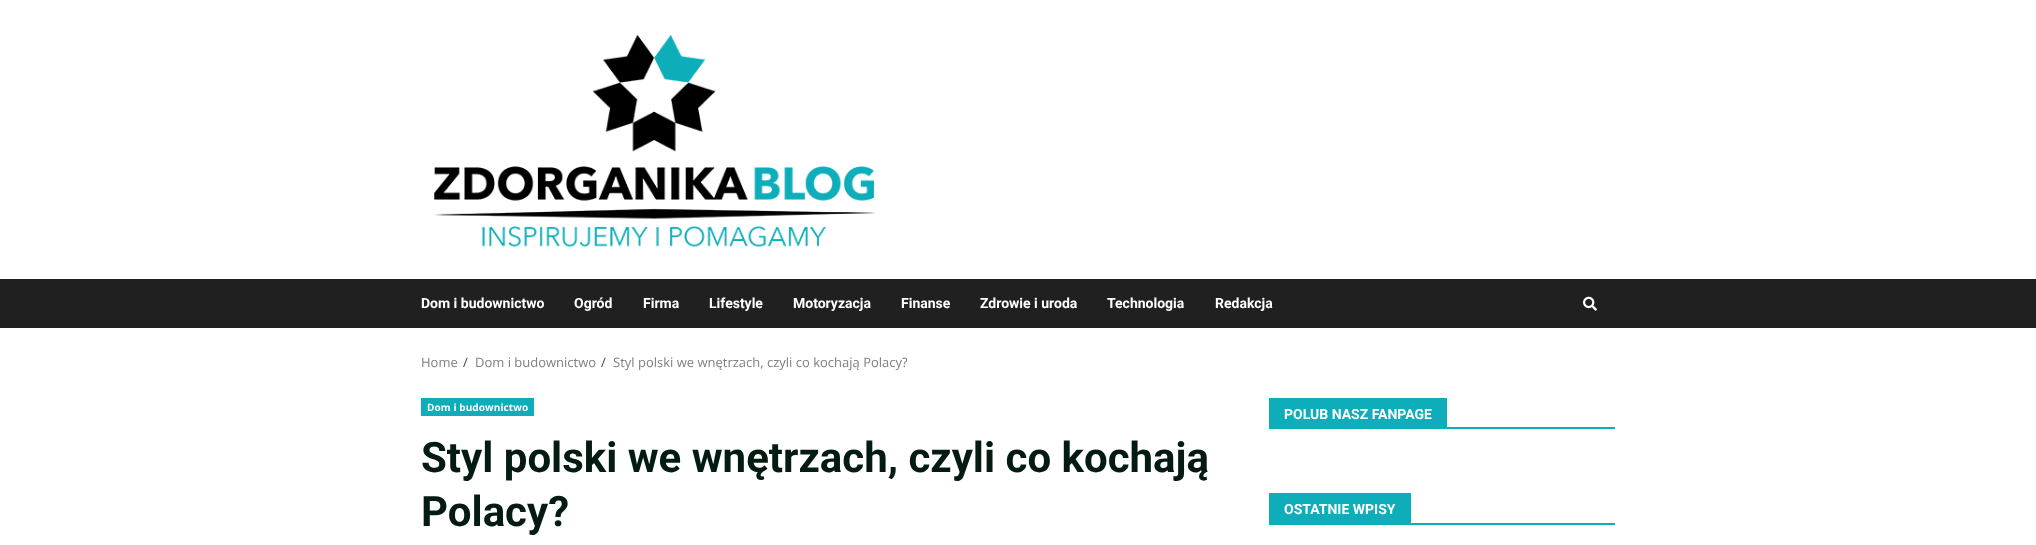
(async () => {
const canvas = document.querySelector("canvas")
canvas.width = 2036
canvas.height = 545
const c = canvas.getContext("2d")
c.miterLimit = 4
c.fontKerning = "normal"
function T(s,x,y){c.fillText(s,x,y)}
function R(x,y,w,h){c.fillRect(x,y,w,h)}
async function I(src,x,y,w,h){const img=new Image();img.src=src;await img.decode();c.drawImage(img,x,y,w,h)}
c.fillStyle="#fff"
R(0,0,2036,545)
await I("1.png",434,34,441,213)
c.fillStyle="#202020"
R(0,279,2036,49)
c.font="bold 14px Roboto"
c.fillStyle="#fff"
T("Dom i budownictwo",421,308)
T("Ogród",574,308)
T("Firma",643,308)
T("Lifestyle",709,308)
T("Motoryzacja",793,308)
T("Finanse",901,308)
T("Zdrowie i uroda",980,308)
T("Technologia",1107,308)
T("Redakcja",1215,308)
await I("2.png",1583,296,14,15)
c.font="13px Open Sans"
c.fillStyle="#808080"
T("Home",421,367)
c.fillStyle="#4a4a4a"
T("/",463,367)
c.fillStyle="#808080"
T("Dom i budownictwo",475,367)
c.fillStyle="#4a4a4a"
T("/",601,367)
c.fillStyle="#808080"
T("Styl polski we wnętrzach, czyli co kochają Polacy?",613,367)
c.fillStyle="#0daeba"
R(421,398,113,18)
c.letterSpacing="0.1px"
c.font="bold 10px Open Sans"
c.fillStyle="#fff"
T("Dom i budownictwo",427,411)
c.letterSpacing="0px"
c.font="bold 42px Roboto"
c.fillStyle="#031b11"
T("Styl polski we wnętrzach, czyli co kochają",421,472)
T("Polacy?",421,526)
c.fillStyle="#0daeba"
R(1269,427,346,2)
R(1269,398,178,29)
c.font="bold 14px Roboto"
c.fillStyle="#fff"
T("POLUB NASZ FANPAGE",1284,419)
c.fillStyle="#0daeba"
R(1269,523,346,2)
R(1269,493,142,30)
c.fillStyle="#fff"
T("OSTATNIE WPISY",1284,514)
})()
